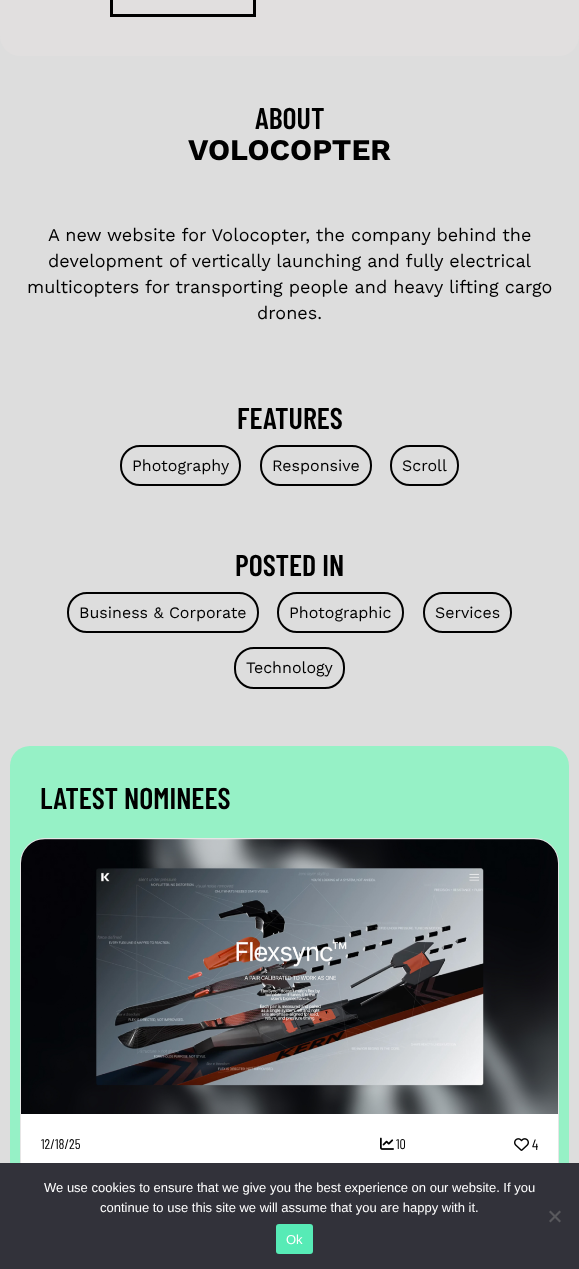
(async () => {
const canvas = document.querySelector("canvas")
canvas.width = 579
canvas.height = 1269
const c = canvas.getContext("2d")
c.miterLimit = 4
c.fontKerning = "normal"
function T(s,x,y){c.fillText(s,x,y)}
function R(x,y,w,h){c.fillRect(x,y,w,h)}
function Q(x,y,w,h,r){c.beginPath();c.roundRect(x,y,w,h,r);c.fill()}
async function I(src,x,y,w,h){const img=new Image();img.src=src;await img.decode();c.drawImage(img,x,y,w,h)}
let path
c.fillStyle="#ddd"
R(0,0,579,1269)
c.fillStyle="#e1dfdf"
Q(0,-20,579,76,20)
c.strokeStyle="#000"
c.lineWidth=3
c.strokeRect(111.5,-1.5,143,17)
c.font="600 30px Barlow Condensed"
c.fillStyle="#000"
T("ABOUT",255,129)
c.font="bold 30px Work Sans"
T("VOLOCOPTER",188,160)
c.font="18px Work Sans"
T("A new website for Volocopter, the company behind the",48,241)
T("development of vertically launching and fully electrical",48,267)
T("multicopters for transporting people and heavy lifting cargo",27,293)
T("drones.",257,319)
c.font="600 30px Barlow Condensed"
T("FEATURES",237,429)
c.beginPath()
c.roundRect(121,446,119,39,19)
c.lineWidth=2
c.stroke()
c.font="16px Work Sans"
T("Photography",132,471)
c.beginPath()
c.roundRect(261,446,110,39,19)
c.stroke()
T("Responsive",272,471)
c.beginPath()
c.roundRect(391,446,67,39,19)
c.stroke()
T("Scroll",402,471)
c.font="600 30px Barlow Condensed"
T("POSTED IN",235,576)
c.beginPath()
c.roundRect(68,593,190,39,19)
c.stroke()
c.font="16px Work Sans"
T("Business & Corporate",79,618)
c.beginPath()
c.roundRect(278,593,125,39,19)
c.stroke()
T("Photographic",289,618)
c.beginPath()
c.roundRect(424,593,87,39,19)
c.stroke()
T("Services",435,618)
c.beginPath()
c.roundRect(235,648,109,40,19)
c.stroke()
T("Technology",246,673)
c.fillStyle="#96f1c6"
Q(10,746,559,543,20)
c.font="600 30px Barlow Condensed"
c.fillStyle="#000"
T("LATEST NOMINEES",40,809)
c.fillStyle="#fff"
c.beginPath()
c.roundRect(20.5,838.5,538,372,24.5)
c.fill()
c.strokeStyle="#e6e6e6"
c.lineWidth=1
c.stroke()
await I("1.png",21,839,537,275)
c.font="14px Barlow Condensed"
c.fillStyle="#000"
T("12/18/25",41,1149)
await I("2.png",380,1137,14,13)
T("10",396,1149)
await I("3.png",514,1138,15,13)
c.font="15px Barlow Condensed"
T("4",532,1150)
c.fillStyle="#32323a"
R(0,1163,579,106)
c.font="13px Liberation Sans"
c.fillStyle="#fff"
T("We use cookies to ensure that we give you the best experience on our website. If you",44,1192)
T("continue to use this site we will assume that you are happy with it.",100,1212)
c.fillStyle="#59595d"
path = new Path2D("M559.5 1210.5l1.5 1.5l-10.5 10.5l-1.5-1.5z")
c.fill(path)
path = new Path2D("M549 1212l1.5-1.5l10.5 10.5l-1.5 1.5z")
c.fill(path)
c.fillStyle="#57ebb6"
Q(276,1224,37,30,3)
c.fillStyle="#fff"
T("Ok",286,1244)
})()
